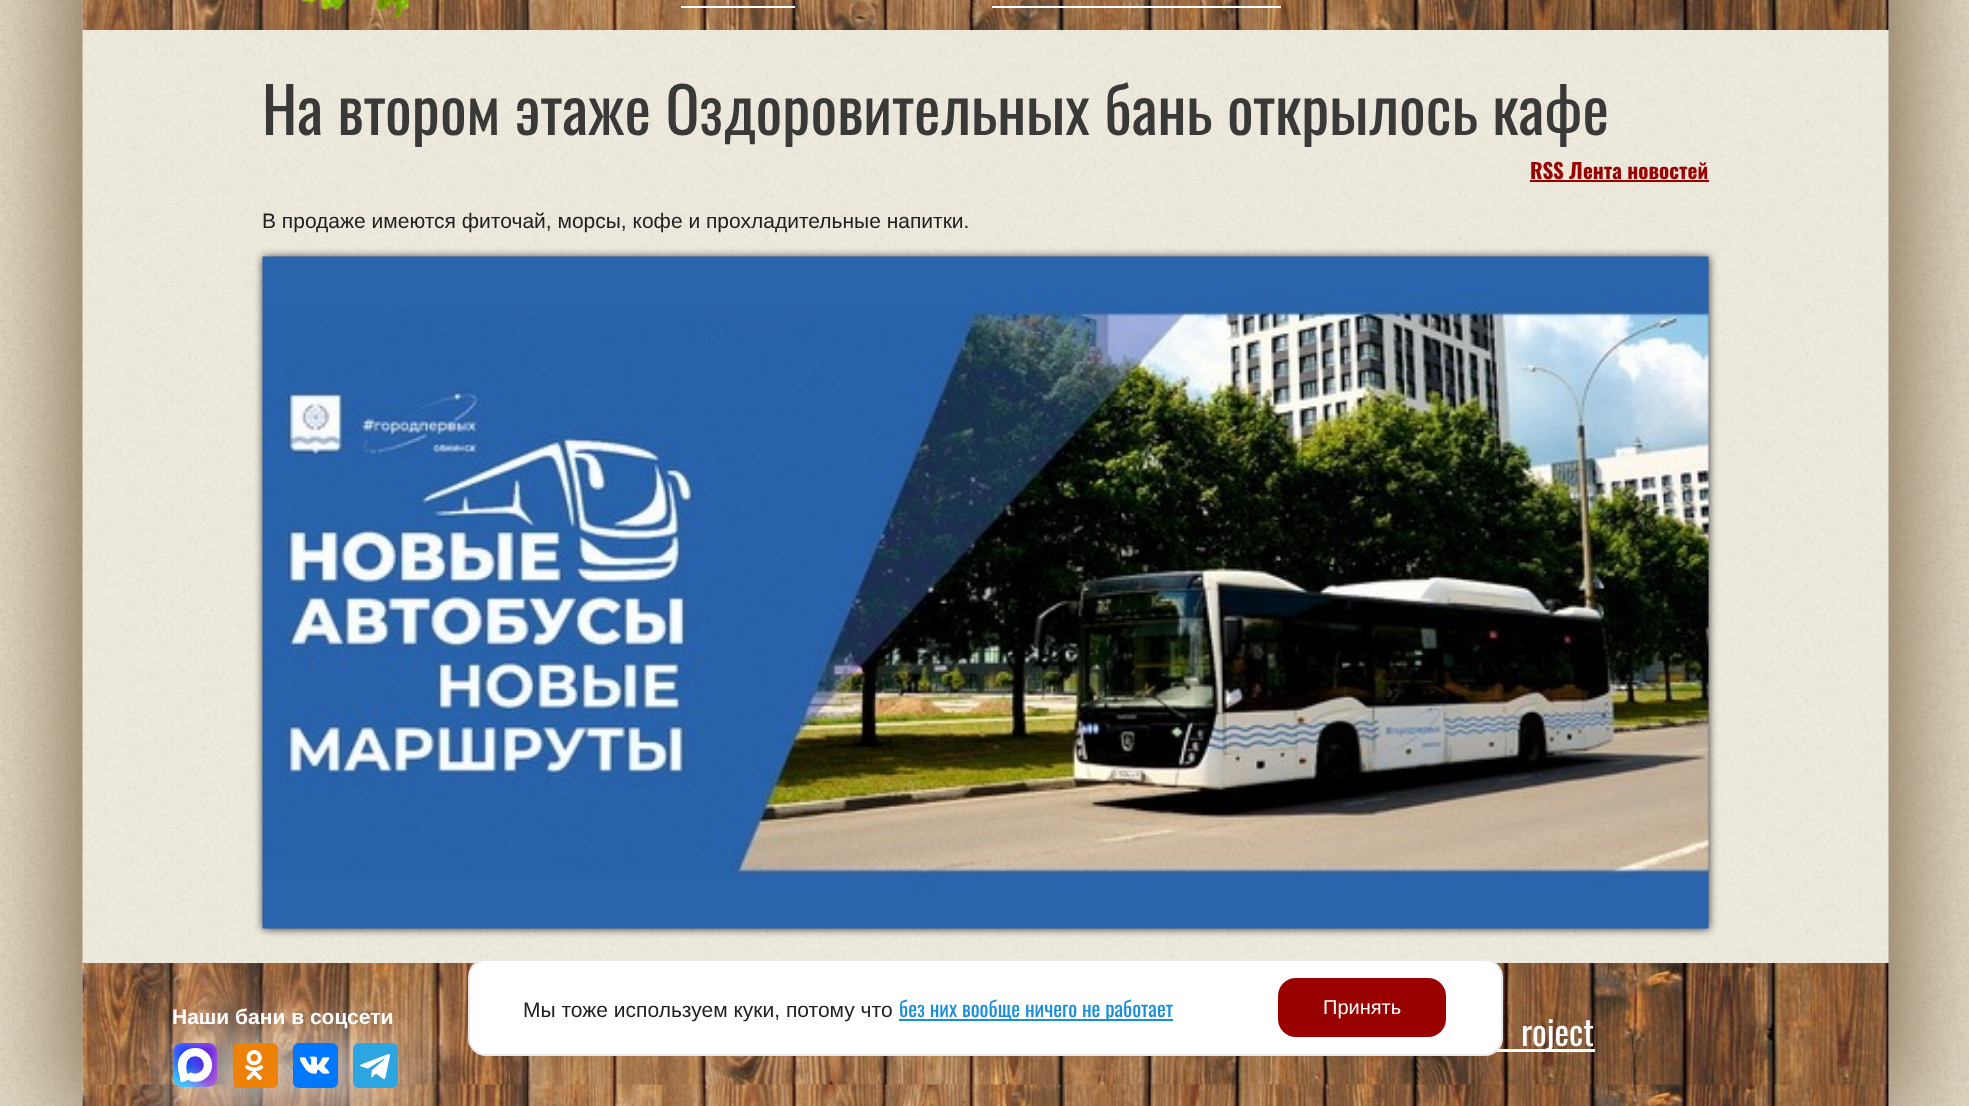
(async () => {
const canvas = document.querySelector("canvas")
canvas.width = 1969
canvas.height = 1106
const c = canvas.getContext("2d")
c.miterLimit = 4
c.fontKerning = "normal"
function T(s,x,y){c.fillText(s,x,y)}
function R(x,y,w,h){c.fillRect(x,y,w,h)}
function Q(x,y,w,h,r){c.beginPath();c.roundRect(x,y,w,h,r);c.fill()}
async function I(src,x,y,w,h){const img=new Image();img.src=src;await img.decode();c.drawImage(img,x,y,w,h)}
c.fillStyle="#fff"
R(0,0,1969,1106)
await I("1.png",0,0,1969,1106)
c.fillStyle="#80674c"
c.filter="blur(52.5px)"
c.beginPath()
c.rect(68,-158,1836,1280)
c.fill()
c.filter="none"
await I("2.png",82,0,1807,1106)
await I("3.png",82,0,1807,30)
c.fillStyle="#fff"
R(681,6,114,2)
R(992,6,289,2)
c.font="63px Oswald"
c.fillStyle="#393938"
T("На втором этаже Оздоровительных бань открылось кафе",262,135)
c.font="bold 21px Oswald"
c.fillStyle="#900"
T("RSS Лента новостей",1530,179)
R(1530,180,179,2)
c.font="21px Liberation Sans"
c.fillStyle="#202020"
T("В продаже имеются фиточай, морсы, кофе и прохладительные напитки.",262,228)
c.fillStyle="#333"
c.filter="blur(4px)"
c.beginPath()
c.rect(263,257,1446,672)
c.fill()
c.filter="none"
await I("4.png",262,256,1447,673)
await I("5.png",82,963,1807,143)
c.fillStyle="#ffffffb3"
c.filter="blur(30px)"
c.beginPath()
c.rect(173,1043,225,60)
c.fill()
c.filter="none"
await I("6.png",173,1043,45,45)
c.fillStyle="#ee8108"
Q(233,1043,45,45,6)
await I("7.png",245,1050,19,30)
c.fillStyle="#07f"
Q(293,1043,45,45,6)
await I("8.png",300,1056,30,18)
c.fillStyle="#2ca5e0"
Q(353,1043,45,45,6)
await I("9.png",360,1054,30,25)
c.font="bold 21px Liberation Sans"
c.fillStyle="#fff"
T("Наши бани в соцсети",172,1024)
R(1496,1049,99,3)
c.font="34.5px Oswald"
T("roject",1521,1046)
c.beginPath()
c.roundRect(469,960,1033,95,17)
c.fill()
c.strokeStyle="#eaeaea"
c.lineWidth=2
c.stroke()
c.font="21px Liberation Sans"
c.fillStyle="#202020"
T("Мы тоже используем куки, потому что",523,1017)
c.fillStyle="#198ed9"
R(899,1019,274,2)
c.font="21px Oswald"
T("без них вообще ничего не работает",899,1017)
c.fillStyle="#900"
Q(1278,978,168,59,18)
c.font="20px Liberation Sans"
c.fillStyle="#fff"
T("Принять",1323,1014)
})()
